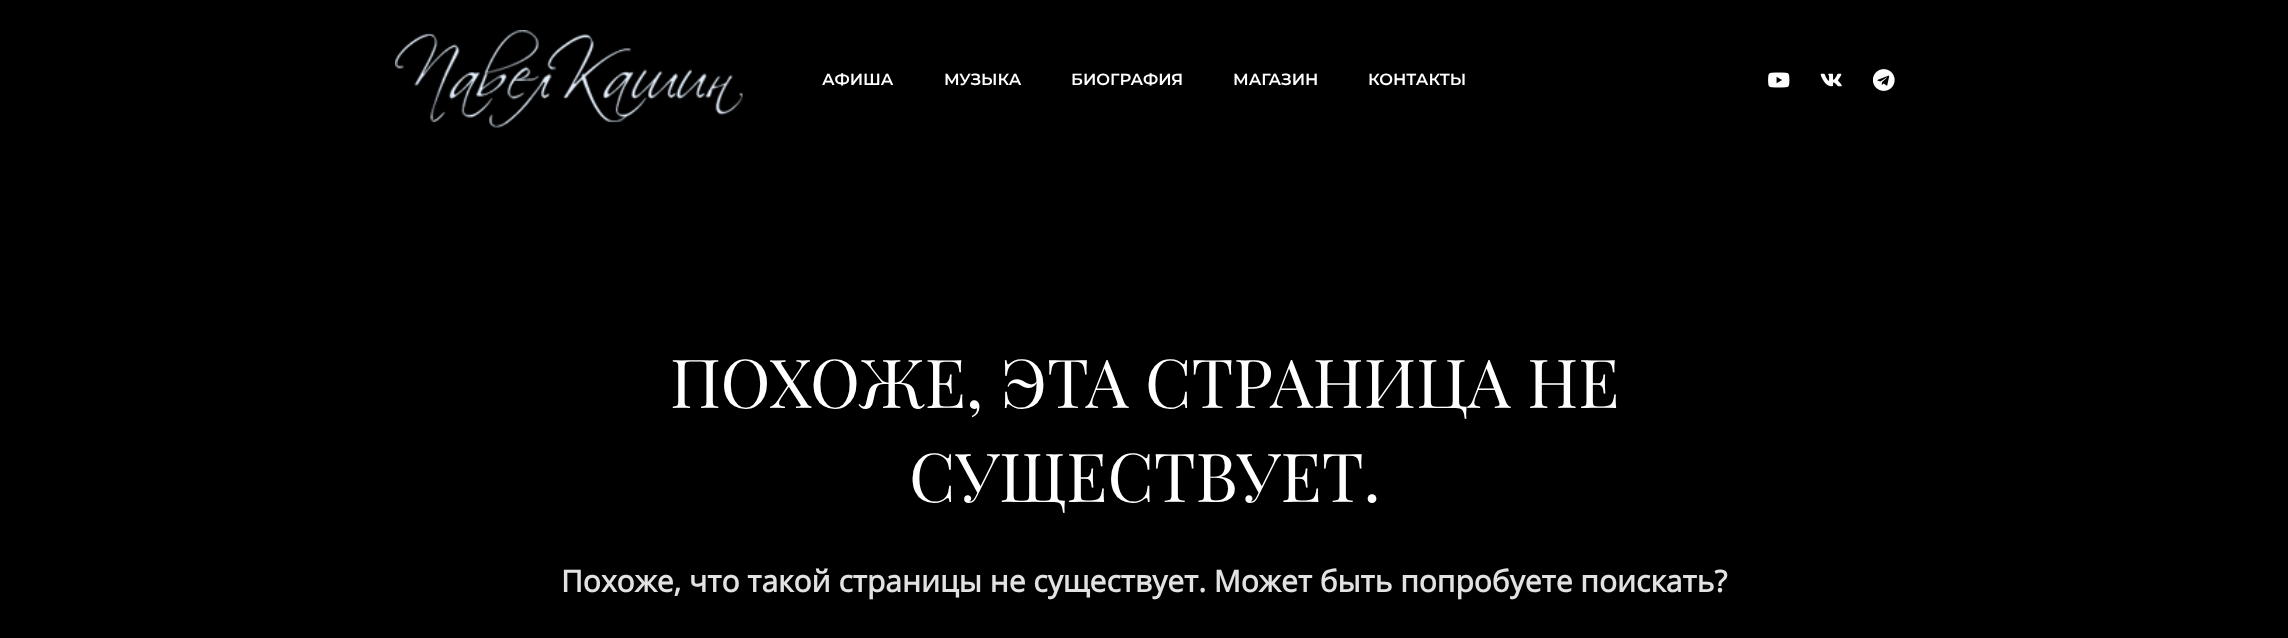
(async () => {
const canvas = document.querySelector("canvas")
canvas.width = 2288
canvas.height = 638
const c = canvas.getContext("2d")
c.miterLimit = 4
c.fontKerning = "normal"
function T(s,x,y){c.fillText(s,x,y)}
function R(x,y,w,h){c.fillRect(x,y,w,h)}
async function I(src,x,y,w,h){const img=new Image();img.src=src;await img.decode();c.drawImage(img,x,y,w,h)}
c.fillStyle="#000"
R(0,0,2288,638)
await I("1.png",395,30,348,98)
c.font="100 16.25px Montserrat"
c.fillStyle="#fff"
T("АФИША",822,85)
T("МУЗЫКА",944,85)
T("БИОГРАФИЯ",1071,85)
T("МАГАЗИН",1233,85)
T("КОНТАКТЫ",1368,85)
await I("2.png",1768,72,22,16)
await I("3.png",1820,73,22,14)
await I("4.png",1873,69,22,22)
c.font="67.5px Playfair Display"
T("ПОХОЖЕ, ЭТА СТРАНИЦА НЕ",670,408)
T("СУЩЕСТВУЕТ.",909,502)
c.font="bold 30px Open Sans"
c.fillStyle="#e2e2e2"
T("Похоже, что такой страницы не существует. Может быть попробуете поискать?",561,592)
})()
